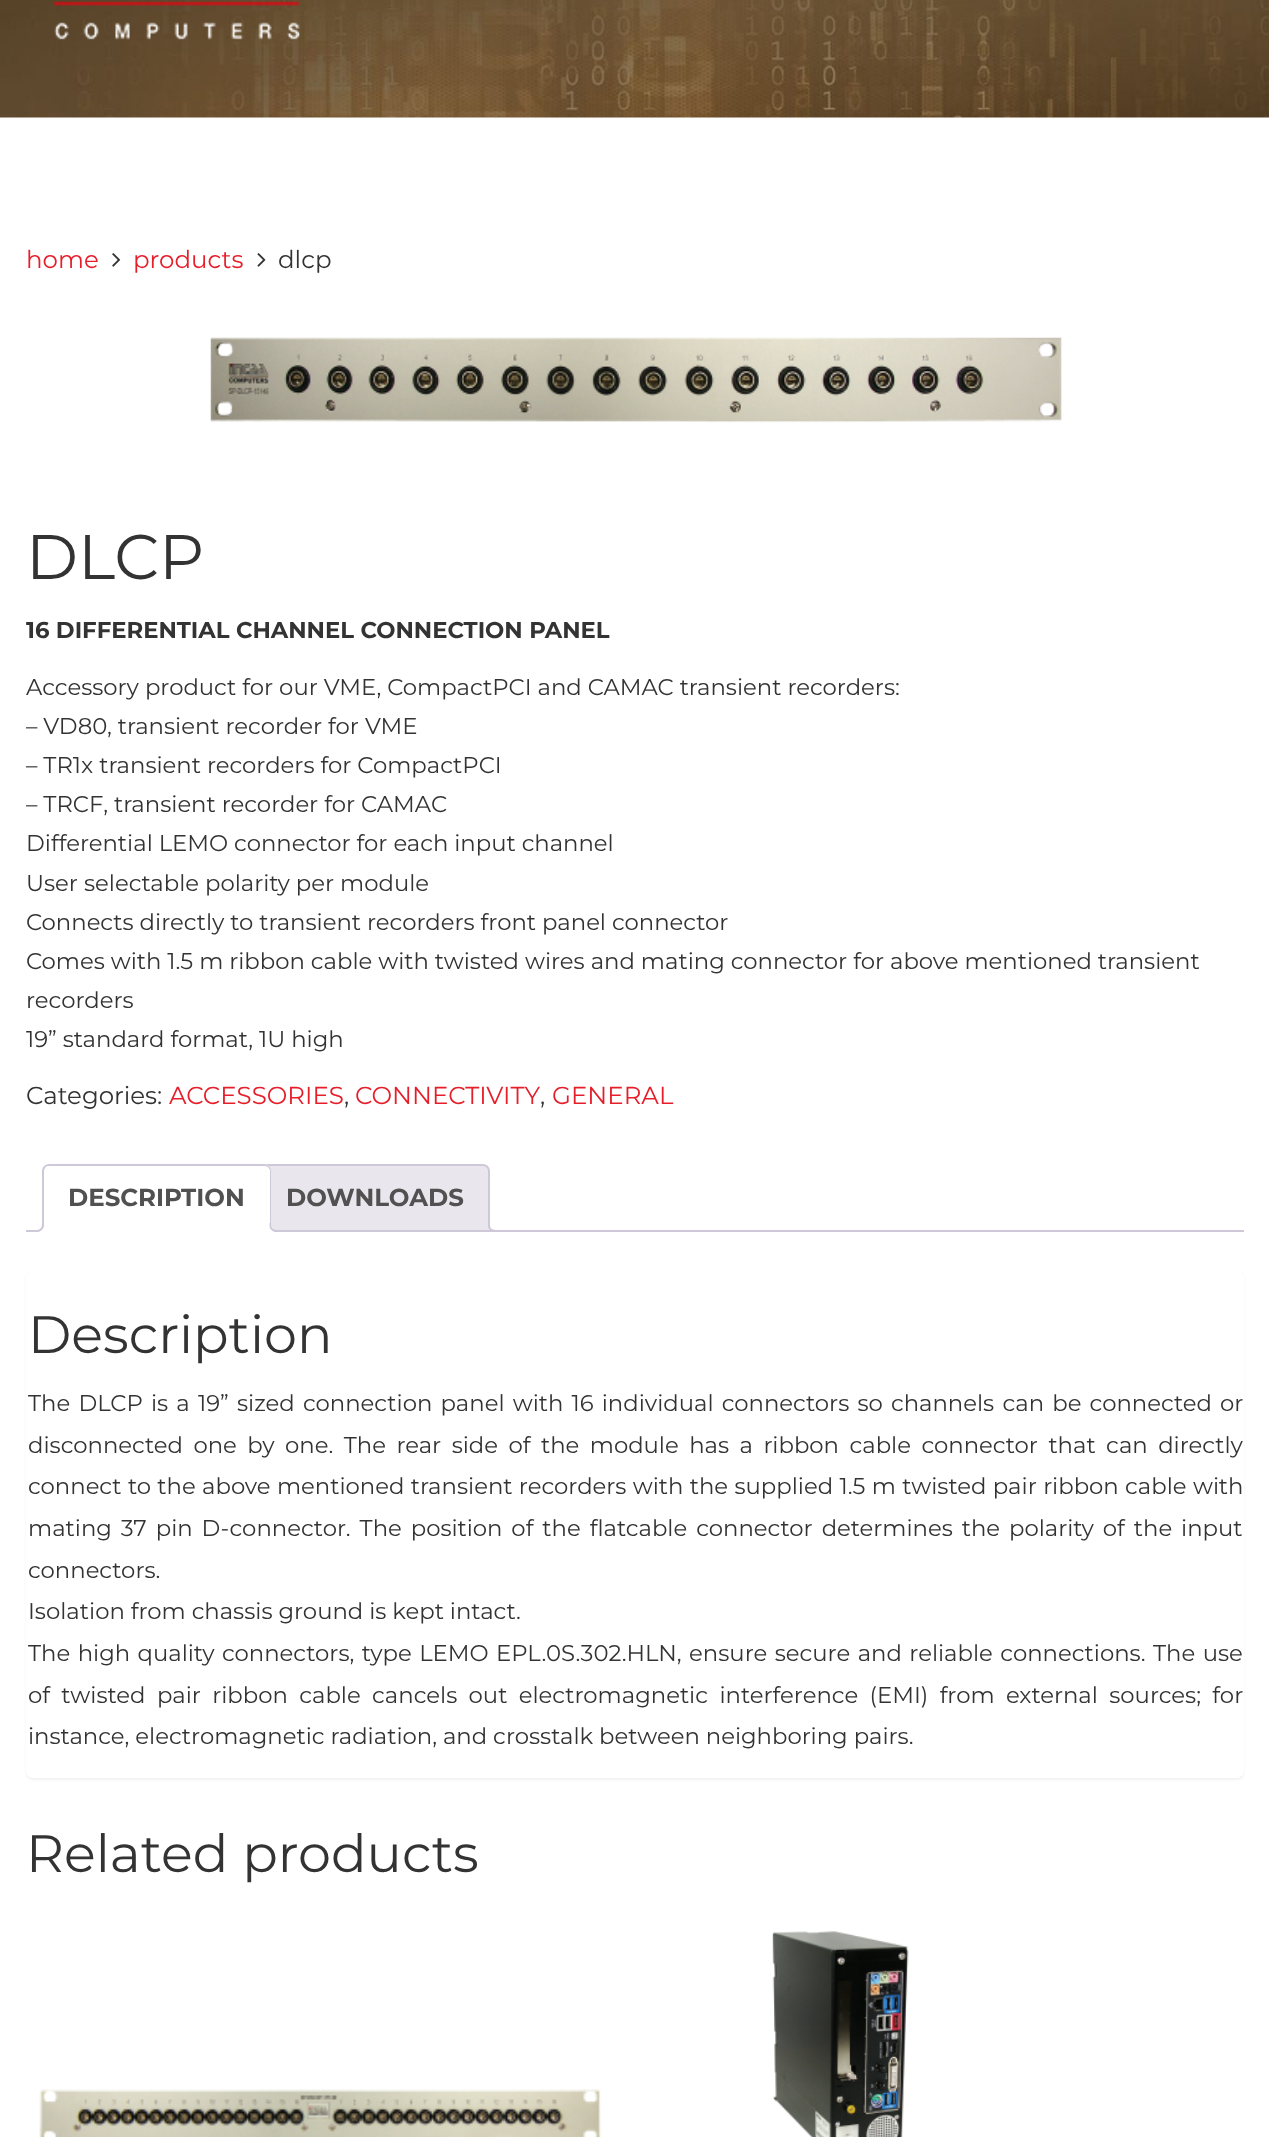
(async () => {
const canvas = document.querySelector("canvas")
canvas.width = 1269
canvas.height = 2137
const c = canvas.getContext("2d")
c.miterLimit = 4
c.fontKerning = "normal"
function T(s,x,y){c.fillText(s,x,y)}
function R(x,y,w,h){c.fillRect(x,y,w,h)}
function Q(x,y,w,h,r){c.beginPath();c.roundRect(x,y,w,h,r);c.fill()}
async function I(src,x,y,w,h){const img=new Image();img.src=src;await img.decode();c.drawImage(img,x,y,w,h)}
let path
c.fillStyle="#fff"
R(0,0,1269,2137)
await I("1.png",0,0,1269,118)
await I("2.png",54,1,246,39)
c.font="24.5px Montserrat"
c.fillStyle="#e51e2a"
T("home",26,268)
await I("3.png",112,253,9,14)
T("products",133,268)
await I("4.png",257,253,9,14)
c.fillStyle="#333"
T("dlcp",278,268)
await I("5.png",210,337,852,86)
c.font="63px Montserrat"
T("DLCP",26,579)
c.font="bold 22.75px Montserrat"
T("16 DIFFERENTIAL CHANNEL CONNECTION PANEL",26,638)
c.font="22.75px Montserrat"
T("Accessory product for our VME, CompactPCI and CAMAC transient recorders:",26,695)
T("– VD80, transient recorder for VME",26,734)
T("– TR1x transient recorders for CompactPCI",26,773)
T("– TRCF, transient recorder for CAMAC",26,812)
T("Differential LEMO connector for each input channel",26,851)
T("User selectable polarity per module",26,891)
T("Connects directly to transient recorders front panel connector",26,930)
T("Comes with 1.5 m ribbon cable with twisted wires and mating connector for above mentioned transient",26,969)
T("recorders",26,1008)
T("19” standard format, 1U high",26,1047)
c.font="24.5px Montserrat"
T("Categories:",26,1104)
c.fillStyle="#e51e2a"
T("ACCESSORIES",169,1104)
c.fillStyle="#333"
T(",",344,1104)
c.fillStyle="#e51e2a"
T("CONNECTIVITY",355,1104)
c.fillStyle="#333"
T(",",540,1104)
c.fillStyle="#e51e2a"
T("GENERAL",552,1104)
c.fillStyle="#e9e6ed"
c.beginPath()
c.roundRect(262,1165,227,66,[6,6,0,0])
c.fill()
c.strokeStyle="#cfc8d8"
c.lineWidth=2
c.stroke()
c.save()
c.beginPath()
c.rect(26,1164,1218,68)
c.clip()
path = new Path2D("M485 1227c0 6.5 2.5 9 9 9v-4c-2.5-.5-4.5-2.5-5.5-5z")
c.fill(path)
c.restore()
c.fillStyle="#cfc8d8"
path = new Path2D("M488 1223h9v9c-4.5 0-9-1.5-9-7zm2 0h7v7c-3.5 0-7-.5-7-5z")
c.fill(path,"evenodd")
R(26,1230,1218,2)
c.fillStyle="#fff"
c.beginPath()
c.roundRect(42,1164,229,68,[7,7,0,0])
c.fill()
c.fillStyle="#cfc8d8"
path = new Path2D("M49 1164c-2 0-4 1-5 2l2 1c0-1 2-1 3-1h215c1 0 3 0 4 1l1-1c-1-1-3-2-5-2z")
c.fill(path)
path = new Path2D("M271 1232v-61c0-2-1-4-2-5l-1 1l2 3v60h-1z")
c.fill(path)
c.fillStyle="#fff"
path = new Path2D("M271 1232l-2-2h-225l-2 2z")
c.fill(path)
c.fillStyle="#cfc8d8"
path = new Path2D("M42 1232l2-2v-59c0-2 1-3 2-4l-2-1c-1 1-2 3-2 5z")
c.fill(path)
c.font="bold 24.5px Montserrat"
c.fillStyle="#515151"
T("DESCRIPTION",68,1206)
c.save()
c.beginPath()
c.rect(26,1164,1218,68)
c.clip()
c.fillStyle="#fff"
path = new Path2D("M39 1231.5v4.5c6 0 8-3.5 8-9h-3.5c-.5 2-2.5 4-4.5 4.5z")
c.fill(path)
c.restore()
c.fillStyle="#cfc8d8"
path = new Path2D("M35 1223h9c0 6.5-3 9-9 9zm0 0h7c0 5.5-2 7-7 7z")
c.fill(path,"evenodd")
c.save()
c.beginPath()
c.rect(26,1164,1218,68)
c.clip()
c.fillStyle="#fff"
path = new Path2D("M266 1227c0 6.5 2.5 9 9 9v-4c-2.5-.5-4.5-2.5-5-5z")
c.fill(path)
c.restore()
path = new Path2D("M269.5 1223h8.5v9c-4 0-8.5-1.5-8.5-7zm1.5 0h7v7c-3 0-7-.5-7-5z")
c.fill(path,"evenodd")
c.fillStyle="#515151"
T("DOWNLOADS",286,1206)
c.fillStyle="#0000000d"
c.filter="blur(1px)"
c.beginPath()
c.roundRect(26,1272,1218,508,7)
c.fill()
c.filter="none"
c.fillStyle="#fff"
Q(26,1271,1218,507,7)
c.font="52.5px Montserrat"
c.fillStyle="#333"
T("Description",28,1353)
c.wordSpacing="2.25px"
c.font="22.75px Montserrat"
T("The DLCP is a 19” sized connection panel with 16 individual connectors so channels can be connected or",28,1411)
c.wordSpacing="4.5px"
T("disconnected one by one. The rear side of the module has a ribbon cable connector that can directly",28,1453)
c.wordSpacing="0.4px"
T("connect to the above mentioned transient recorders with the supplied 1.5 m twisted pair ribbon cable with",28,1494)
c.wordSpacing="3px"
T("mating 37 pin D-connector. The position of the flatcable connector determines the polarity of the input",28,1536)
c.wordSpacing="0px"
T("connectors.",28,1578)
T("Isolation from chassis ground is kept intact.",28,1619)
c.wordSpacing="1.5px"
T("The high quality connectors, type LEMO EPL.0S.302.HLN, ensure secure and reliable connections. The use",28,1661)
c.wordSpacing="5.4px"
T("of twisted pair ribbon cable cancels out electromagnetic interference (EMI) from external sources; for",28,1703)
c.wordSpacing="0px"
T("instance, electromagnetic radiation, and crosstalk between neighboring pairs.",28,1744)
c.font="52.5px Montserrat"
T("Related products",26,1872)
await I("6.png",39,2089,562,48)
await I("7.png",772,1931,137,206)
})()
